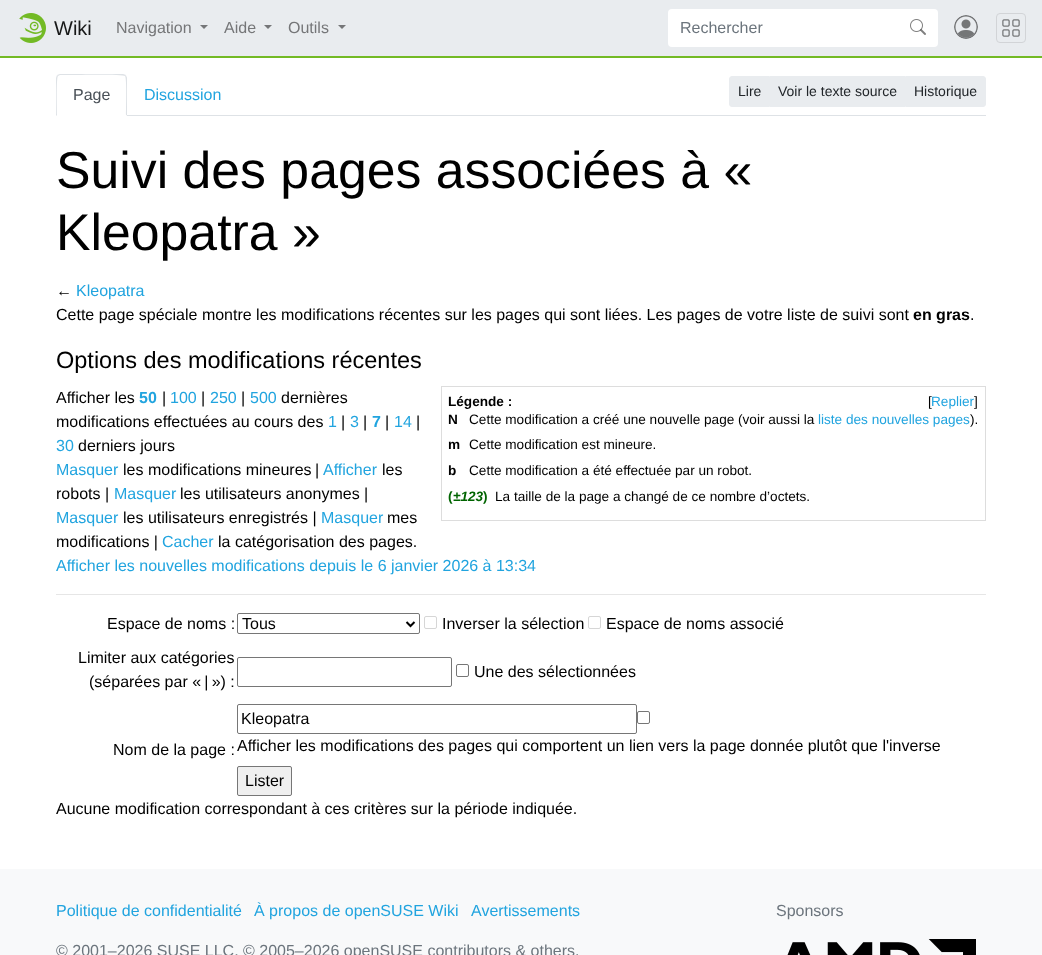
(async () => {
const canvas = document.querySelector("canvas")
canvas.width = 1042
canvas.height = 955
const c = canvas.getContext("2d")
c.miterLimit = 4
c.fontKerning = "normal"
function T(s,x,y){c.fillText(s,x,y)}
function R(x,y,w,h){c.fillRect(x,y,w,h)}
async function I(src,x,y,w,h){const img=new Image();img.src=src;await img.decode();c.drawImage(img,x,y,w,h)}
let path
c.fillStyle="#fff"
R(0,0,1042,955)
c.fillStyle="#e9ecef"
R(0,0,1042,56)
c.fillStyle="#73ba25"
R(0,56,1042,2)
await I("1.png",19,13,27,30)
c.font="20px Liberation Sans"
c.fillStyle="#171818"
T("Wiki",54,35)
c.font="16px Liberation Sans"
c.fillStyle="#757678"
T("Navigation",116,33)
path = new Path2D("M200 25h8l-4 4z")
c.fill(path)
T("Aide",224,33)
path = new Path2D("M264 25h8l-4 4z")
c.fill(path)
T("Outils",288,33)
path = new Path2D("M338 25h8l-4 4z")
c.fill(path)
c.fillStyle="#fff"
c.beginPath()
c.roundRect(668,9,231,38,[4,0,0,4])
c.fill()
c.fillStyle="#6c757d"
T("Rechercher",680,33)
c.fillStyle="#fff"
c.beginPath()
c.roundRect(898,9,40,38,[0,4,4,0])
c.fill()
await I("2.png",910,19,16,16)
await I("3.png",954,15,24,24)
c.beginPath()
c.roundRect(996.5,13.5,29,29,3.5)
c.strokeStyle="#d2d4d7"
c.stroke()
await I("4.png",1002,19,18,18)
c.fillStyle="#dee2e6"
R(127,115,859,1)
path = new Path2D("M60 74l-3 1l1 1l2-1h10c7 0 53-1 55 1l1-1l-3-1z")
c.fill(path)
path = new Path2D("M127 116v-38c0-1-1-2-1-3l-1 1c2 2 1 34 1 39z")
c.fill(path)
c.fillStyle="#fff"
path = new Path2D("M127 116l-1-1h-69l-1 1z")
c.fill(path)
c.fillStyle="#dee2e6"
path = new Path2D("M56 116l1-1c0-5-1-37 1-39l-1-1l-1 3z")
c.fill(path)
c.fillStyle="#495057"
T("Page",73,100)
c.fillStyle="#21a4df"
T("Discussion",144,100)
c.fillStyle="#e9ecef"
c.beginPath()
c.roundRect(729.5,76.5,40,30,[2.5,0,0,2.5])
c.fill()
c.strokeStyle="#e9ecef"
c.stroke()
c.font="14px Liberation Sans"
c.fillStyle="#212529"
T("Lire",738,96)
c.fillStyle="#e9ecef"
R(770,76,135,31)
c.fillStyle="#212529"
T("Voir le texte source",778,96)
c.fillStyle="#e9ecef"
c.beginPath()
c.roundRect(905.5,76.5,80,30,[0,2.5,2.5,0])
c.fill()
c.stroke()
c.fillStyle="#212529"
T("Historique",914,96)
c.font="51.75px Liberation Sans"
c.fillStyle="#000"
T("Suivi des pages associées à «",56,188)
T("Kleopatra »",56,250)
c.font="16px Liberation Sans"
T("←",56,296)
c.fillStyle="#21a4df"
T("Kleopatra",76,296)
c.fillStyle="#000"
T("Cette page spéciale montre les modifications récentes sur les pages qui sont liées. Les pages de votre liste de suivi sont",56,320)
c.font="bold 16px Liberation Sans"
T("en gras",913,320)
c.font="16px Liberation Sans"
T(".",970,320)
c.font="23.5px Liberation Sans"
T("Options des modifications récentes",56,368)
c.font="16px Liberation Sans"
T("Afficher les",56,403)
c.font="bold 16px Liberation Sans"
c.fillStyle="#21a4df"
T("50",139,403)
c.font="16px Liberation Sans"
c.fillStyle="#000"
T("|",162,403)
c.fillStyle="#21a4df"
T("100",170,403)
c.fillStyle="#000"
T("|",201,403)
c.fillStyle="#21a4df"
T("250",210,403)
c.fillStyle="#000"
T("|",241,403)
c.fillStyle="#21a4df"
T("500",250,403)
c.fillStyle="#000"
T("dernières",281,403)
c.strokeStyle="#ddd"
c.strokeRect(441.5,386.5,544,134)
c.font="bold 13.6px Liberation Sans"
T("Légende :",448,406)
c.font="13.6px Liberation Sans"
T("[",928,406)
c.fillStyle="#21a4df"
T("Replier",931,406)
c.fillStyle="#000"
T("]",974,406)
c.font="bold 13.6px Liberation Sans"
T("N",448,424)
c.font="13.6px Liberation Sans"
T("Cette modification a créé une nouvelle page (voir aussi la",469,424)
c.fillStyle="#21a4df"
T("liste des nouvelles pages",818,424)
c.fillStyle="#000"
T(").",970,424)
c.font="bold 13.6px Liberation Sans"
T("m",448,449)
c.font="13.6px Liberation Sans"
T("Cette modification est mineure.",469,449)
c.font="bold 13.6px Liberation Sans"
T("b",448,475)
c.font="13.6px Liberation Sans"
T("Cette modification a été effectuée par un robot.",469,475)
c.font="bold 13.6px Liberation Sans"
c.fillStyle="#006400"
T("(",448,501)
c.font="italic bold 13.6px Liberation Sans"
T("±123",453,501)
c.font="bold 13.6px Liberation Sans"
T(")",483,501)
c.font="13.6px Liberation Sans"
c.fillStyle="#000"
T("La taille de la page a changé de ce nombre d’octets.",495,501)
c.font="16px Liberation Sans"
T("modifications effectuées au cours des",56,427)
c.fillStyle="#21a4df"
T("1",328,427)
c.fillStyle="#000"
T("|",341,427)
c.fillStyle="#21a4df"
T("3",350,427)
c.fillStyle="#000"
T("|",363,427)
c.font="bold 16px Liberation Sans"
c.fillStyle="#21a4df"
T("7",372,427)
c.font="16px Liberation Sans"
c.fillStyle="#000"
T("|",385,427)
c.fillStyle="#21a4df"
T("14",394,427)
c.fillStyle="#000"
T("|",416,427)
c.fillStyle="#21a4df"
T("30",56,451)
c.fillStyle="#000"
T("derniers jours",78,451)
c.fillStyle="#21a4df"
T("Masquer",56,475)
c.fillStyle="#000"
T("les modifications mineures",123,475)
T("|",315,475)
c.fillStyle="#21a4df"
T("Afficher",323,475)
c.fillStyle="#000"
T("les",382,475)
T("robots |",56,499)
c.fillStyle="#21a4df"
T("Masquer",114,499)
c.fillStyle="#000"
T("les utilisateurs anonymes |",180,499)
c.fillStyle="#21a4df"
T("Masquer",56,523)
c.fillStyle="#000"
T("les utilisateurs enregistrés |",123,523)
c.fillStyle="#21a4df"
T("Masquer",321,523)
c.fillStyle="#000"
T("mes",387,523)
T("modifications |",56,547)
c.fillStyle="#21a4df"
T("Cacher",162,547)
c.fillStyle="#000"
T("la catégorisation des pages.",218,547)
c.fillStyle="#21a4df"
T("Afficher les nouvelles modifications depuis le 6 janvier 2026 à 13:34",56,571)
c.fillStyle="#e6e6e6"
R(56,594,930,1)
c.fillStyle="#000"
T("Espace de noms :",107,629)
c.beginPath()
c.roundRect(237.5,613.5,182,20,1.5)
c.strokeStyle="#767676"
c.stroke()
path = new Path2D("M406.5 622l4 4l4-4")
c.strokeStyle="#000"
c.lineWidth=2
c.stroke(path)
T("Tous",242,629)
c.beginPath()
c.roundRect(424.5,616.5,12,12,1.5)
c.strokeStyle="#d6d6d6"
c.lineWidth=1
c.stroke()
T("Inverser la sélection",442,629)
c.beginPath()
c.roundRect(588.5,616.5,12,12,1.5)
c.stroke()
T("Espace de noms associé",606,629)
T("Limiter aux catégories",78,663)
T("(séparées par « | ») :",89,687)
c.beginPath()
c.roundRect(237.5,657.5,214,29,1.5)
c.strokeStyle="#767676"
c.stroke()
c.beginPath()
c.roundRect(456.5,664.5,12,12,1.5)
c.stroke()
T("Une des sélectionnées",474,677)
T("Nom de la page :",113,755)
c.beginPath()
c.roundRect(237.5,704.5,399,29,1.5)
c.stroke()
T("Kleopatra",241,724)
c.beginPath()
c.roundRect(637.5,711.5,12,12,1.5)
c.stroke()
T("Afficher les modifications des pages qui comportent un lien vers la page donnée plutôt que l'inverse",237,751)
c.fillStyle="#efefef"
c.beginPath()
c.roundRect(237.5,766.5,54,29,1.5)
c.fill()
c.stroke()
c.fillStyle="#000"
T("Lister",245,786)
T("Aucune modification correspondant à ces critères sur la période indiquée.",56,814)
c.fillStyle="#f8f9fa"
R(0,869,1042,86)
c.fillStyle="#21a4df"
T("Politique de confidentialité",56,916)
T("À propos de openSUSE Wiki",254,916)
T("Avertissements",471,916)
c.fillStyle="#6c757d"
T("© 2001–2026 SUSE LLC, © 2005–2026 openSUSE contributors & others.",56,956)
T("Sponsors",776,916)
await I("5.png",787,939,189,16)
})()
